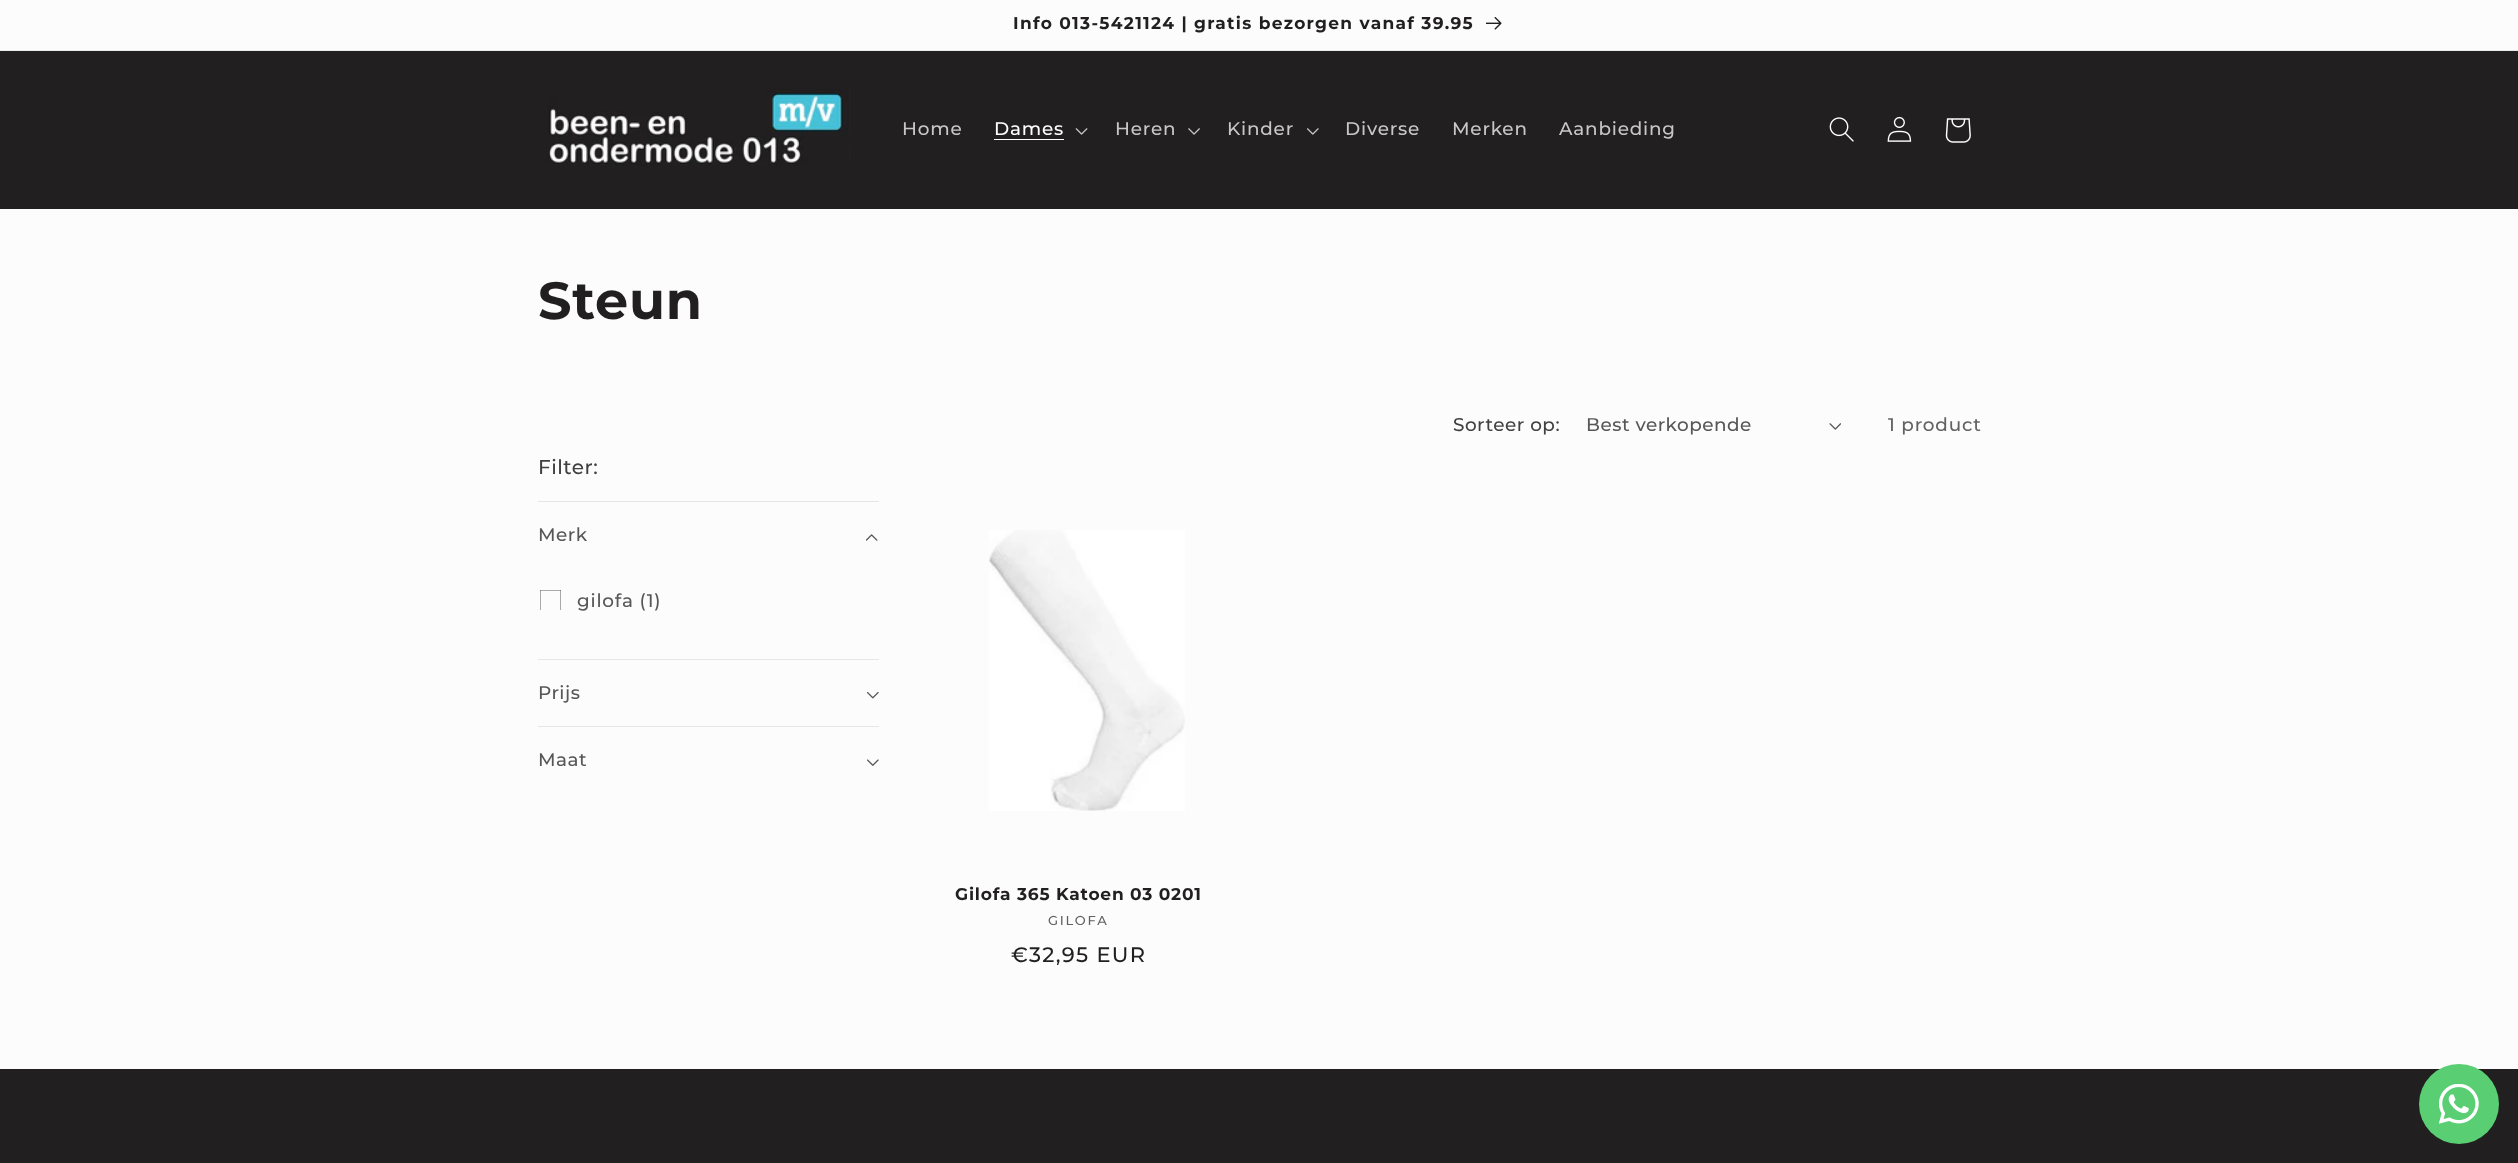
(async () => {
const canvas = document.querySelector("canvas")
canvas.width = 2518
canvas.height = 1163
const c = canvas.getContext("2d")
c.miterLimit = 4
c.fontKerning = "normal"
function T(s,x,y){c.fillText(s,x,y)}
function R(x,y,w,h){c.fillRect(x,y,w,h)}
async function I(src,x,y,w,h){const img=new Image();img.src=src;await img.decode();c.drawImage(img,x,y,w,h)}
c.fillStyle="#fcfcfc"
R(0,0,2518,1163)
c.fillStyle="#eaeaea"
R(0,50,2518,1)
c.letterSpacing="1.3px"
c.font="bold 17.05px Montserrat"
c.fillStyle="#211f20"
T("Info 013-5421124 | gratis bezorgen vanaf 39.95",1013,29)
await I("1.png",1486,17,16,13)
R(0,51,2518,158)
await I("2.png",548,87,302,79)
c.letterSpacing="0.8px"
c.font="500 18.4px Montserrat"
c.fillStyle="#c8c7c7"
T("Home",902,135)
c.fillStyle="#fff"
T("Dames",994,135)
R(994,139,70,1)
await I("3.png",1075,128,13,7)
c.fillStyle="#c8c7c7"
T("Heren",1115,135)
await I("4.png",1188,128,12,7)
T("Kinder",1227,135)
await I("5.png",1307,128,12,7)
T("Diverse",1345,135)
T("Merken",1452,135)
T("Aanbieding",1559,135)
await I("6.png",1829,117,25,25)
await I("7.png",1887,116,25,26)
await I("8.png",1945,118,26,25)
c.font="bold 52.5px Montserrat"
c.fillStyle="#211f20"
T("Steun",538,319)
c.letterSpacing="0.5px"
c.font="500 18.4px Montserrat"
c.fillStyle="#424041"
T("Sorteer op:",1453,431)
c.fillStyle="#585657"
T("Best verkopende",1586,431)
await I("9.png",1829,423,12,7)
c.letterSpacing="0.8px"
c.fillStyle="#636162"
T("1 product",1888,431)
c.letterSpacing="0.5px"
c.font="500 20px Montserrat"
c.fillStyle="#424041"
T("Filter:",538,474)
c.fillStyle="#e6e6e6"
R(538,501,341,1)
c.font="500 18.4px Montserrat"
c.fillStyle="#585657"
T("Merk",538,541)
await I("10.png",866,534,12,7)
c.save()
c.beginPath()
c.rect(540,590,21,20)
c.clip()
c.strokeStyle="#585657"
c.lineWidth=1.5
c.strokeRect(539.75,589.75,21.5,21.5)
c.restore()
c.letterSpacing="0.8px"
T("gilofa (1)",577,607)
c.fillStyle="#e6e6e6"
R(538,659,341,1)
c.letterSpacing="0.5px"
c.fillStyle="#585657"
T("Prijs",538,699)
await I("11.png",867,692,12,7)
c.fillStyle="#e6e6e6"
R(538,726,341,1)
c.fillStyle="#585657"
T("Maat",538,766)
await I("12.png",867,759,12,7)
await I("13.png",989,530,196,281)
c.letterSpacing="0.8px"
c.font="bold 17.05px Montserrat"
c.fillStyle="#211f20"
T("Gilofa 365 Katoen 03 0201",955,900)
c.letterSpacing="1.75px"
c.font="500 13px Montserrat"
c.fillStyle="#636162"
T("GILOFA",1048,925)
c.letterSpacing="1.3px"
c.font="500 21px Montserrat"
c.fillStyle="#211f20"
T("€32,95 EUR",1011,962)
R(0,1069,2518,94)
c.fillStyle="#59ce72"
c.beginPath()
c.arc(2459,1104,40,0,7)
c.fill()
await I("14.png",2439,1084,40,40)
})()
